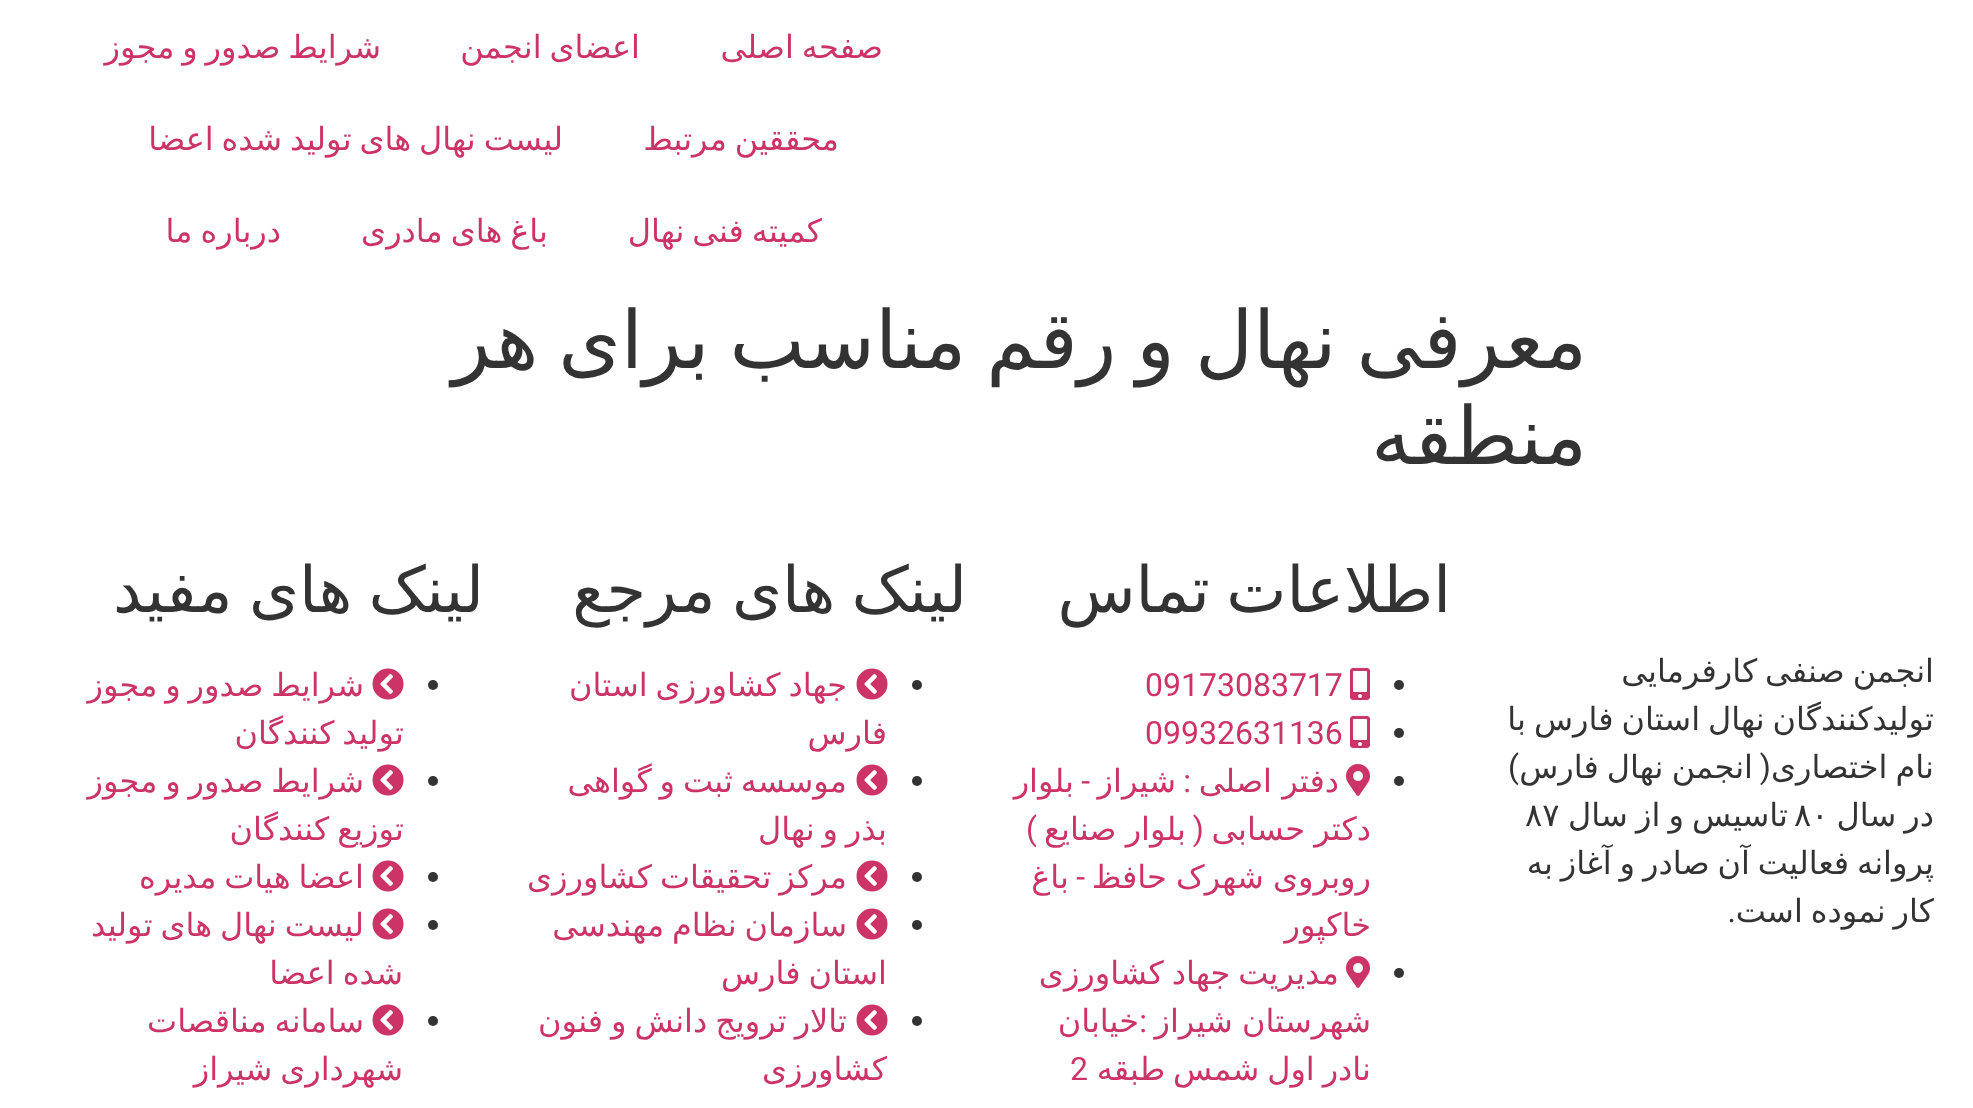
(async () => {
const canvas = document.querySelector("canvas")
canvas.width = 1973
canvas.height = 1108
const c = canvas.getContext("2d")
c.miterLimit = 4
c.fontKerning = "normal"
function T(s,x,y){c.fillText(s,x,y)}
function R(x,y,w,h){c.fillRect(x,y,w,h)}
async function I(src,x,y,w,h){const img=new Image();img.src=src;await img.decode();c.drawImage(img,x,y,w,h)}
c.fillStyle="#fff"
R(0,0,1973,1108)
c.wordSpacing="-2.25px"
c.direction="rtl"
c.font="32px DejaVu Sans"
c.fillStyle="#c36"
T("صفحه اصلی",883,58)
T("اعضای انجمن",640,58)
T("شرایط صدور و مجوز",381,58)
T("محققین مرتبط",839,150)
T("لیست نهال های تولید شده اعضا",563,150)
T("کمیته فنی نهال",822,242)
T("باغ های مادری",548,242)
T("درباره ما",281,242)
c.wordSpacing="-5.5px"
c.font="80px DejaVu Sans"
c.fillStyle="#333"
T("معرفی نهال و رقم مناسب برای هر",1587,368)
c.wordSpacing="0px"
T("منطقه",1587,464)
c.wordSpacing="-2.25px"
c.font="32px DejaVu Sans"
T("انجمن صنفی کارفرمایی",1934,682)
T("تولیدکنندگان نهال استان فارس با",1934,730)
c.wordSpacing="-2px"
T("نام اختصاری",1934,778)
c.wordSpacing="0px"
c.font="32px Roboto"
T("(",1771,778)
c.wordSpacing="-2px"
c.font="32px DejaVu Sans"
T("انجمن نهال فارس",1753,778)
c.wordSpacing="0px"
c.font="32px Roboto"
T(")",1519,778)
c.wordSpacing="-2.25px"
c.font="32px DejaVu Sans"
T("در سال",1934,826)
c.wordSpacing="0px"
c.direction="ltr"
T("۸۰",1794,826)
c.wordSpacing="-2px"
c.direction="rtl"
T("تاسیس و از سال",1788,826)
c.wordSpacing="0px"
c.direction="ltr"
T("۸۷",1525,826)
c.wordSpacing="-2.25px"
c.direction="rtl"
T("پروانه فعالیت آن صادر و آغاز به",1934,874)
T("کار نموده است",1934,922)
c.wordSpacing="0px"
c.font="32px Roboto"
T(".",1736,922)
c.wordSpacing="-4px"
c.font="64px DejaVu Sans"
T("اطلاعات تماس",1451,612)
c.beginPath()
c.arc(1399,685,5,0,7)
c.fill()
await I("1.png",1350,668,20,32)
c.wordSpacing="0px"
c.direction="ltr"
c.font="32px Roboto"
c.fillStyle="#c36"
T("09173083717",1145,696)
c.fillStyle="#333"
c.beginPath()
c.arc(1399,733,5,0,7)
c.fill()
await I("1.png",1350,716,20,32)
c.fillStyle="#c36"
T("09932631136",1145,744)
c.fillStyle="#333"
c.beginPath()
c.arc(1399,781,5,0,7)
c.fill()
await I("2.png",1346,764,24,32)
c.direction="rtl"
c.font="32px DejaVu Sans"
c.fillStyle="#c36"
T("دفتر اصلی",1339,792)
c.font="32px Roboto"
T(":",1191,792)
c.font="32px DejaVu Sans"
T("شیراز",1176,792)
c.font="32px Roboto"
T("-",1090,792)
c.font="32px DejaVu Sans"
T("بلوار",1074,792)
c.wordSpacing="-1px"
T("دکتر حسابی",1371,840)
c.wordSpacing="0px"
c.font="32px Roboto"
T("(",1204,840)
c.wordSpacing="-1px"
c.font="32px DejaVu Sans"
T("بلوار صنایع",1186,840)
c.wordSpacing="0px"
c.font="32px Roboto"
T(")",1037,840)
c.wordSpacing="-1px"
c.font="32px DejaVu Sans"
T("روبروی شهرک حافظ",1371,888)
c.wordSpacing="0px"
c.font="32px Roboto"
T("-",1085,888)
c.font="32px DejaVu Sans"
T("باغ",1069,888)
T("خاکپور",1371,936)
c.fillStyle="#333"
c.beginPath()
c.arc(1399,973,5,0,7)
c.fill()
await I("2.png",1346,956,24,32)
c.wordSpacing="-2.25px"
c.fillStyle="#c36"
T("مدیریت جهاد کشاورزی",1339,984)
c.wordSpacing="-1px"
T("شهرستان شیراز",1371,1032)
c.wordSpacing="0px"
c.font="32px Roboto"
T(":",1147,1032)
c.font="32px DejaVu Sans"
T("خیابان",1139,1032)
c.wordSpacing="-2.25px"
T("نادر اول شمس طبقه",1371,1080)
c.wordSpacing="0px"
c.direction="ltr"
c.font="32px Roboto"
T("2",1070,1080)
c.wordSpacing="-4px"
c.direction="rtl"
c.font="64px DejaVu Sans"
c.fillStyle="#333"
T("لینک های مرجع",967,612)
c.beginPath()
c.arc(917,685,5,0,7)
c.fill()
await I("3.png",856,668,32,32)
c.wordSpacing="-2.25px"
c.font="32px DejaVu Sans"
c.fillStyle="#c36"
T("جهاد کشاورزی استان",847,696)
c.wordSpacing="0px"
T("فارس",887,744)
c.fillStyle="#333"
c.beginPath()
c.arc(917,781,5,0,7)
c.fill()
await I("3.png",856,764,32,32)
c.wordSpacing="-2.25px"
c.fillStyle="#c36"
T("موسسه ثبت و گواهی",847,792)
T("بذر و نهال",887,840)
c.fillStyle="#333"
c.beginPath()
c.arc(917,877,5,0,7)
c.fill()
await I("3.png",856,860,32,32)
c.fillStyle="#c36"
T("مرکز تحقیقات کشاورزی",847,888)
c.fillStyle="#333"
c.beginPath()
c.arc(917,925,5,0,7)
c.fill()
await I("3.png",856,908,32,32)
c.fillStyle="#c36"
T("سازمان نظام مهندسی",847,936)
T("استان فارس",887,984)
c.fillStyle="#333"
c.beginPath()
c.arc(917,1021,5,0,7)
c.fill()
await I("3.png",856,1004,32,32)
c.fillStyle="#c36"
T("تالار ترویج دانش و فنون",847,1032)
c.wordSpacing="0px"
T("کشاورزی",887,1080)
c.wordSpacing="-4px"
c.font="64px DejaVu Sans"
c.fillStyle="#333"
T("لینک های مفید",484,612)
c.beginPath()
c.arc(433,685,5,0,7)
c.fill()
await I("3.png",372,668,32,32)
c.wordSpacing="-2.25px"
c.font="32px DejaVu Sans"
c.fillStyle="#c36"
T("شرایط صدور و مجوز",364,696)
T("تولید کنندگان",404,744)
c.fillStyle="#333"
c.beginPath()
c.arc(433,781,5,0,7)
c.fill()
await I("3.png",372,764,32,32)
c.fillStyle="#c36"
T("شرایط صدور و مجوز",364,792)
T("توزیع کنندگان",404,840)
c.fillStyle="#333"
c.beginPath()
c.arc(433,877,5,0,7)
c.fill()
await I("3.png",372,860,32,32)
c.fillStyle="#c36"
T("اعضا هیات مدیره",364,888)
c.fillStyle="#333"
c.beginPath()
c.arc(433,925,5,0,7)
c.fill()
await I("3.png",372,908,32,32)
c.fillStyle="#c36"
T("لیست نهال های تولید",364,936)
T("شده اعضا",403,984)
c.fillStyle="#333"
c.beginPath()
c.arc(433,1021,5,0,7)
c.fill()
await I("3.png",372,1004,32,32)
c.fillStyle="#c36"
T("سامانه مناقصات",364,1032)
T("شهرداری شیراز",403,1080)
})()
